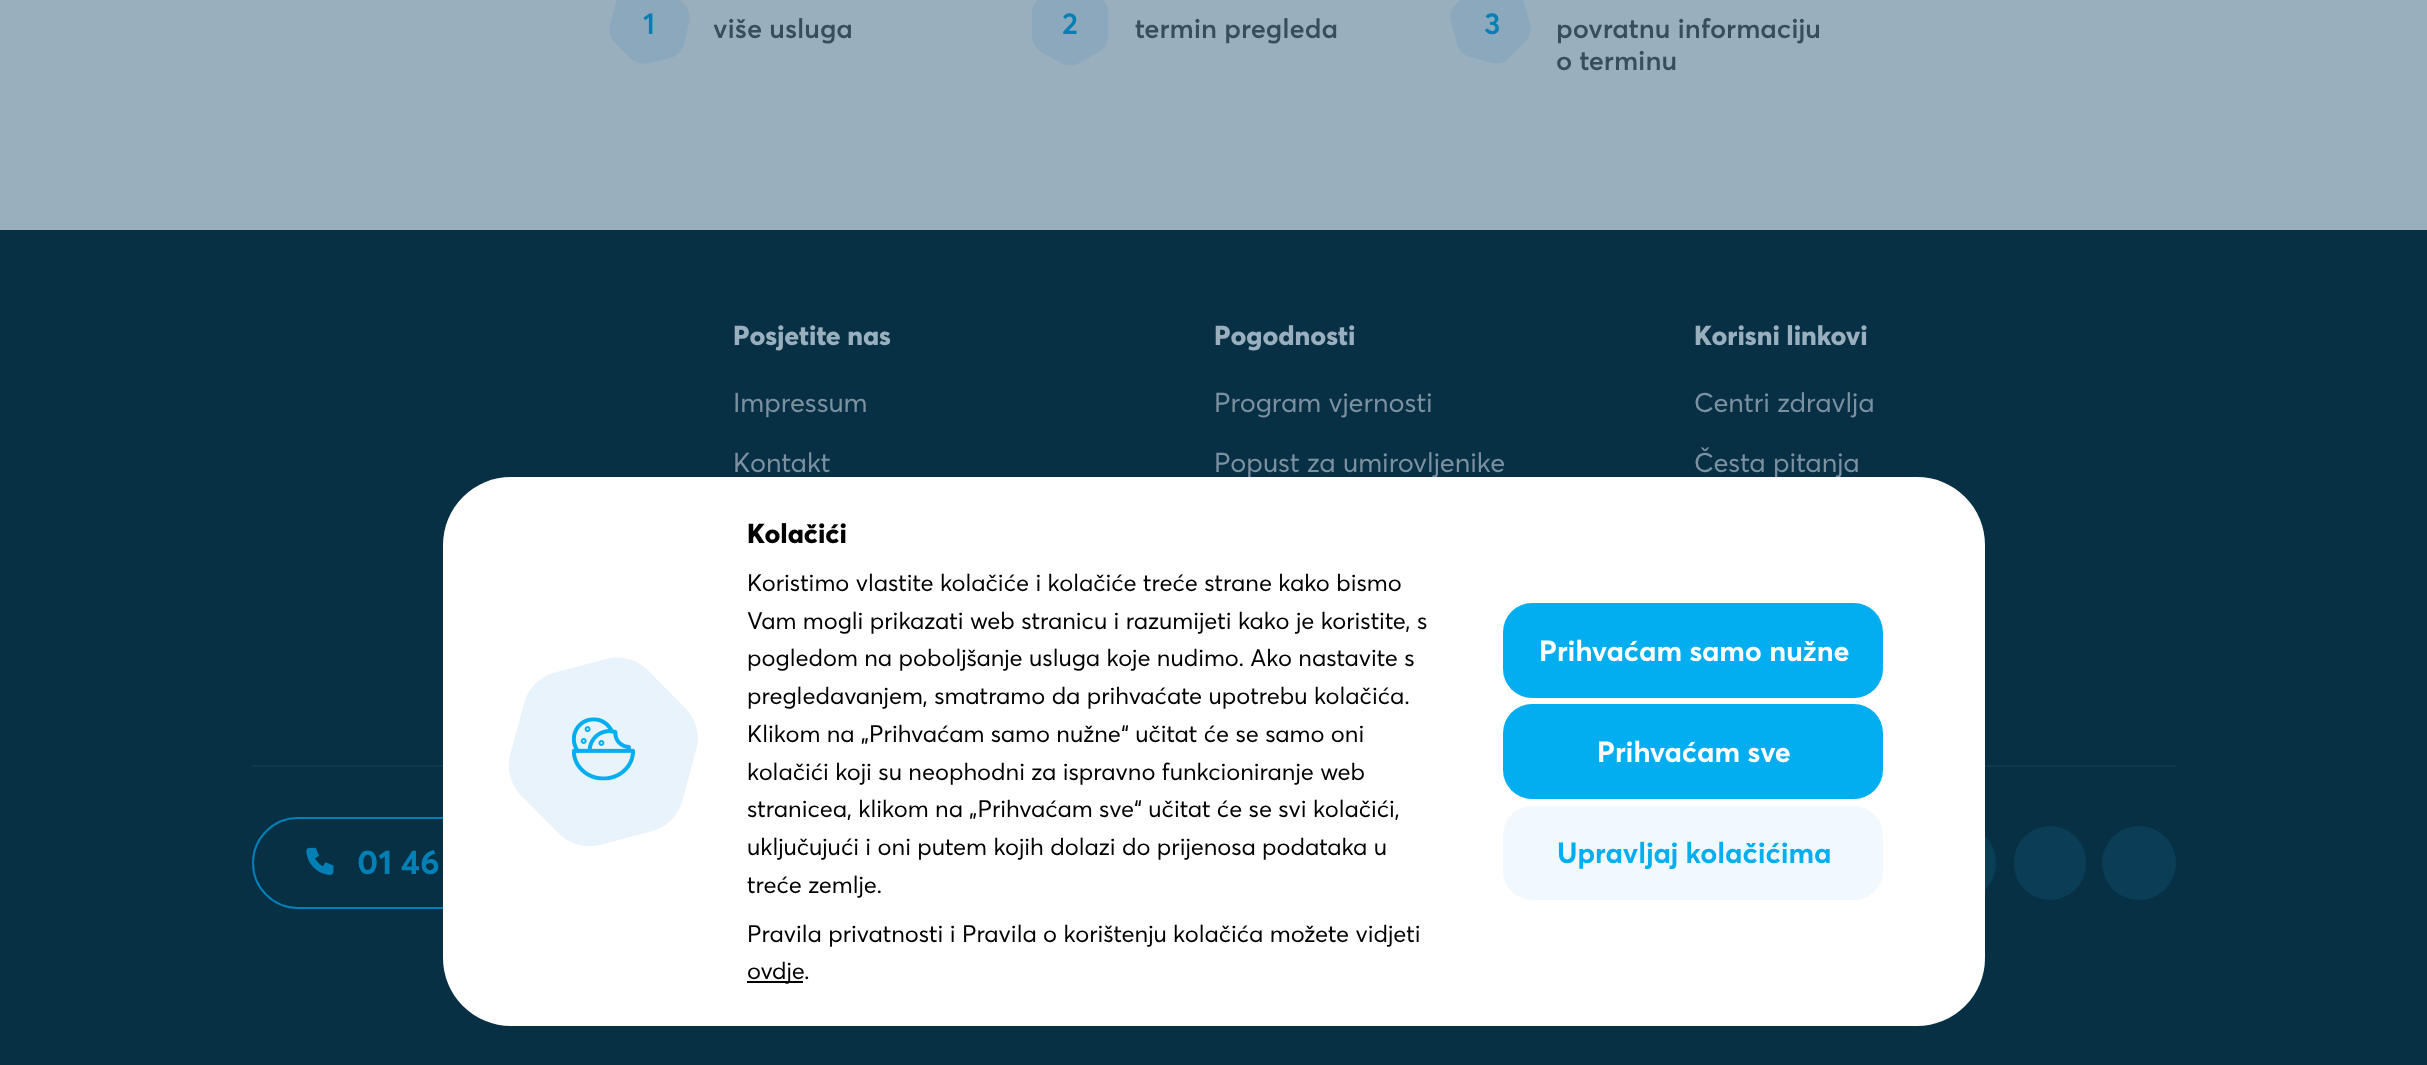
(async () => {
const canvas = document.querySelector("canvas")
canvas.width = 2427
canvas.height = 1065
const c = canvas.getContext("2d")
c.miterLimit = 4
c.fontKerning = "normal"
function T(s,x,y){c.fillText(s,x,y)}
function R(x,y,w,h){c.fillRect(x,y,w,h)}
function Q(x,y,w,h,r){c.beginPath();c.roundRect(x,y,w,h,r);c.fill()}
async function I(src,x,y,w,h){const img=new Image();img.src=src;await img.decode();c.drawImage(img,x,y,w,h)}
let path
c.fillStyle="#9aafbe"
R(0,0,2427,1065)
c.fillStyle="#8ca8bc"
path = new Path2D("M671 58c6-2 11-7 13-13l5-22c2-7 0-13-4-18l-16-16c-5-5-12-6-18-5l-22 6c-6 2-11 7-13 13l-6 22c-1 6 0 13 5 18l16 16c5 4 11 6 18 4z")
c.fill(path,"evenodd")
c.font="600 30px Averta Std"
c.fillStyle="#027fb5"
T("1",643,34)
c.font="600 27px Averta Std"
c.fillStyle="#384d5c"
T("više usluga",713,38)
c.save()
c.beginPath()
c.rect(1028,0,86,65)
c.clip()
c.fillStyle="#8ca8bc"
path = new Path2D("M1061 63c6 3 13 3 18 0l20-11c6-4 9-10 9-16v-23c0-7-3-13-9-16l-20-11c-5-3-12-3-18 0l-20 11c-5 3-9 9-9 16v23c0 6 4 12 9 16z")
c.fill(path,"evenodd")
c.restore()
c.font="600 30px Averta Std"
c.fillStyle="#027fb5"
T("2",1062,34)
c.font="600 27px Averta Std"
c.fillStyle="#384d5c"
T("termin pregleda",1135,38)
c.fillStyle="#8ca8bc"
path = new Path2D("M1457 44c2 6 6 11 13 13l22 6c6 1 13 0 17-5l16-16c5-5 7-11 5-18l-6-21c-1-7-6-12-13-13l-22-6c-6-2-13 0-17 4l-16 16c-5 5-7 12-5 18z")
c.fill(path,"evenodd")
c.font="600 30px Averta Std"
c.fillStyle="#027fb5"
T("3",1484,34)
c.font="600 27px Averta Std"
c.fillStyle="#384d5c"
T("povratnu informaciju",1556,38)
T("o terminu",1556,70)
c.fillStyle="#083045"
R(0,230,2427,835)
c.font="800 27px Averta Std"
c.fillStyle="#9aafbe"
T("Posjetite nas",733,345)
c.font="27px Averta Std"
c.fillStyle="#7c91a0"
T("Impressum",733,412)
T("Kontakt",733,472)
c.font="800 27px Averta Std"
c.fillStyle="#9aafbe"
T("Pogodnosti",1214,345)
c.font="27px Averta Std"
c.fillStyle="#7c91a0"
T("Program vjernosti",1214,412)
T("Popust za umirovljenike",1214,472)
c.font="800 27px Averta Std"
c.fillStyle="#9aafbe"
T("Korisni linkovi",1694,345)
c.font="27px Averta Std"
c.fillStyle="#7c91a0"
T("Centri zdravlja",1694,412)
T("Česta pitanja",1694,472)
c.fillStyle="#113a4f"
R(252,765,1924,2)
c.beginPath()
c.roundRect(253,818,324,90,45)
c.strokeStyle="#027fb5"
c.lineWidth=2
c.stroke()
await I("1.png",306,847,28,28)
c.font="bold 34px Averta Std"
c.fillStyle="#027fb5"
T("01 46",357,874)
c.fillStyle="#0c3d56"
Q(1924,826,72,74,36)
Q(2014,826,72,74,36)
c.beginPath()
c.arc(2139,863,37,0,7)
c.fill()
c.fillStyle="#fff"
Q(443,477,1542,549,68)
await I("2.png",509,657,189,190)
c.font="800 27px Averta Std"
c.fillStyle="#000"
T("Kolačići",747,543)
c.font="23.6px Averta Std"
T("Koristimo vlastite kolačiće i kolačiće treće strane kako bismo",747,591)
T("Vam mogli prikazati web stranicu i razumijeti kako je koristite, s",747,629)
T("pogledom na poboljšanje usluga koje nudimo. Ako nastavite s",747,666)
T("pregledavanjem, smatramo da prihvaćate upotrebu kolačića.",747,704)
T("Klikom na „Prihvaćam samo nužne“ učitat će se samo oni",747,742)
T("kolačići koji su neophodni za ispravno funkcioniranje web",747,780)
T("stranicea, klikom na „Prihvaćam sve“ učitat će se svi kolačići,",747,817)
T("uključujući i oni putem kojih dolazi do prijenosa podataka u",747,855)
T("treće zemlje.",747,893)
T("Pravila privatnosti i Pravila o korištenju kolačića možete vidjeti",747,942)
R(747,981,56,2)
T("ovdje",747,979)
T(".",804,979)
c.fillStyle="#02aeef"
Q(1503,603,380,95,29)
c.font="bold 28.75px Averta Std"
c.fillStyle="#fff"
T("Prihvaćam samo nužne",1539,661)
c.fillStyle="#02aeef"
Q(1503,704,380,95,29)
c.fillStyle="#fff"
T("Prihvaćam sve",1597,762)
c.fillStyle="#f1f9ff"
Q(1503,806,380,94,29)
c.fillStyle="#02aeef"
T("Upravljaj kolačićima",1557,863)
})()
